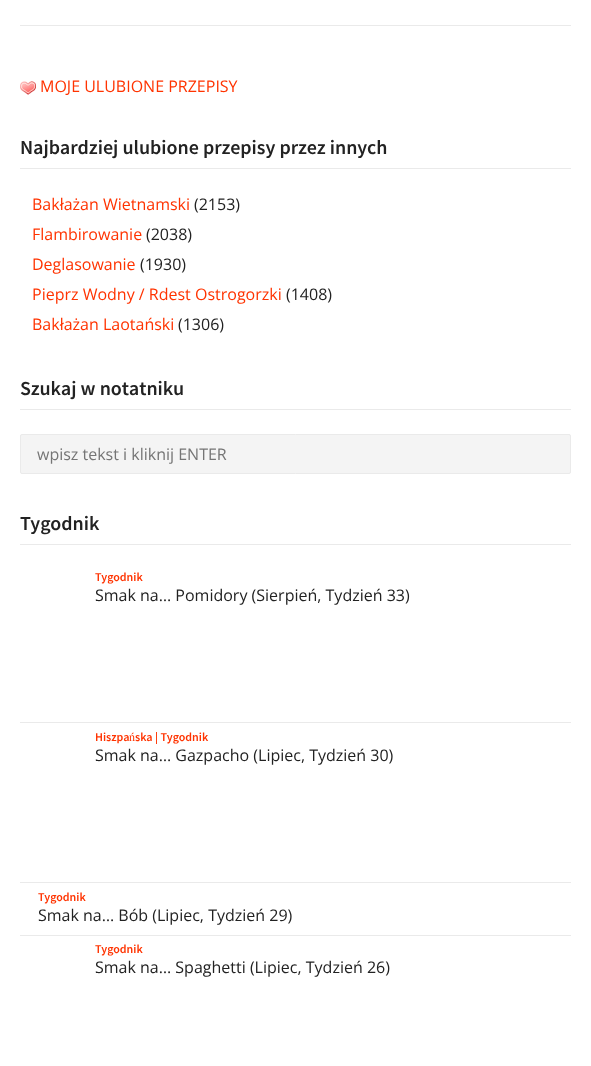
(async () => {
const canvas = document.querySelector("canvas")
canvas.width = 591
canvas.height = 1066
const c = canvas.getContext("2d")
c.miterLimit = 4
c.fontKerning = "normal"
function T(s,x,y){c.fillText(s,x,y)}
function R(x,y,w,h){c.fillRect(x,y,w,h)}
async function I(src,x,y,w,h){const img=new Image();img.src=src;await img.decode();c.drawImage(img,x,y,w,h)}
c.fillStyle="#fff"
R(0,0,591,1066)
c.fillStyle="#eaeaea"
R(20,25,551,1)
await I("1.png",20,81,16,14)
c.font="16px Open Sans"
c.fillStyle="#f30"
T("MOJE ULUBIONE PRZEPISY",40,92)
c.fillStyle="#eaeaea"
R(20,168,551,1)
c.font="600 20px Source Sans Pro"
c.fillStyle="#222"
T("Najbardziej ulubione przepisy przez innych",20,154)
c.font="16px Open Sans"
c.fillStyle="#f30"
T("Bakłażan Wietnamski",32,210)
c.fillStyle="#222"
T("(2153)",194,210)
c.fillStyle="#f30"
T("Flambirowanie",32,240)
c.fillStyle="#222"
T("(2038)",146,240)
c.fillStyle="#f30"
T("Deglasowanie",32,270)
c.fillStyle="#222"
T("(1930)",140,270)
c.fillStyle="#f30"
T("Pieprz Wodny / Rdest Ostrogorzki",32,300)
c.fillStyle="#222"
T("(1408)",286,300)
c.fillStyle="#f30"
T("Bakłażan Laotański",32,330)
c.fillStyle="#222"
T("(1306)",178,330)
c.fillStyle="#eaeaea"
R(20,409,551,1)
c.font="600 20px Source Sans Pro"
c.fillStyle="#222"
T("Szukaj w notatniku",20,395)
c.fillStyle="#f4f4f4"
c.beginPath()
c.roundRect(20.5,434.5,550,39,1.5)
c.fill()
c.strokeStyle="#eaeaea"
c.stroke()
c.font="16px Open Sans"
c.fillStyle="#757575"
T("wpisz tekst i kliknij ENTER",37,460)
c.fillStyle="#eaeaea"
R(20,544,551,1)
c.font="600 20px Source Sans Pro"
c.fillStyle="#222"
T("Tygodnik",20,530)
c.fillStyle="#eaeaea"
R(20,722,551,1)
c.font="600 12px Source Sans Pro"
c.fillStyle="#f30"
T("Tygodnik",95,581)
c.font="16px Open Sans"
c.fillStyle="#222"
T("Smak na… Pomidory (Sierpień, Tydzień 33)",95,601)
c.fillStyle="#eaeaea"
R(20,882,551,1)
c.font="600 12px Source Sans Pro"
c.fillStyle="#f30"
T("Hiszpa",95,741)
c.font="12px Liberation Serif"
T("ń",129,741)
c.font="600 12px Source Sans Pro"
T("ska | Tygodnik",135,741)
c.font="16px Open Sans"
c.fillStyle="#222"
T("Smak na… Gazpacho (Lipiec, Tydzień 30)",95,761)
c.fillStyle="#eaeaea"
R(20,935,551,1)
c.font="600 12px Source Sans Pro"
c.fillStyle="#f30"
T("Tygodnik",38,901)
c.font="16px Open Sans"
c.fillStyle="#222"
T("Smak na… Bób (Lipiec, Tydzień 29)",38,921)
c.font="600 12px Source Sans Pro"
c.fillStyle="#f30"
T("Tygodnik",95,953)
c.font="16px Open Sans"
c.fillStyle="#222"
T("Smak na… Spaghetti (Lipiec, Tydzień 26)",95,973)
})()
